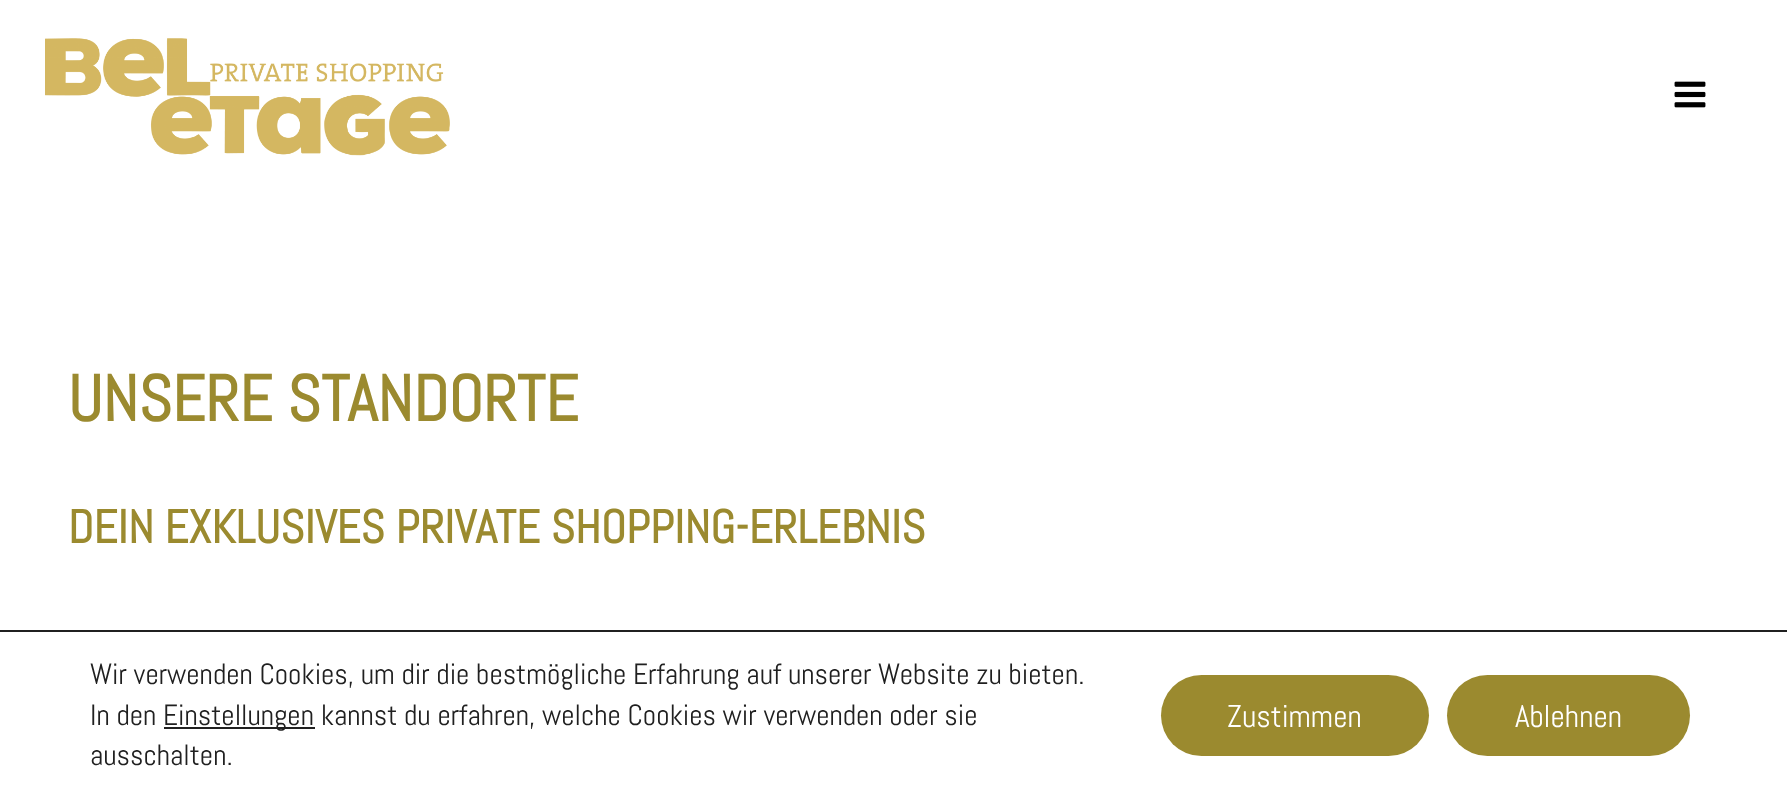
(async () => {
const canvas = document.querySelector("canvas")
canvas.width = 1787
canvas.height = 797
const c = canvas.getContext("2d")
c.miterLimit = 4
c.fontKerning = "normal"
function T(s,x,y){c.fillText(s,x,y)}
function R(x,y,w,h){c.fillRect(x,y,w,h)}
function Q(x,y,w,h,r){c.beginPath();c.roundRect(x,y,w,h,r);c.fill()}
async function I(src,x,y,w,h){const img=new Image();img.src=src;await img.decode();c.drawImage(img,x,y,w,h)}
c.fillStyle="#fff"
R(0,0,1787,797)
await I("1.png",45,38,405,118)
await I("2.png",1674,81,32,27)
c.font="bold 64.75px Abel"
c.fillStyle="#9b8a2f"
T("UNSERE STANDORTE",68,421)
c.font="bold 46.75px Abel"
T("DEIN EXKLUSIVES PRIVATE SHOPPING-ERLEBNIS",68,543)
c.fillStyle="#202020"
R(0,630,1787,2)
c.font="29.25px Abel"
T("Wir verwenden Cookies, um dir die bestmögliche Erfahrung auf unserer Website zu bieten.",90,684)
T("In den",90,725)
R(164,727,151,2)
T("Einstellungen kannst du erfahren, welche Cookies wir verwenden oder sie",163,725)
T("ausschalten.",90,765)
c.fillStyle="#9b8a2f"
Q(1161,675,268,81,40.5)
c.font="31.5px Abel"
c.fillStyle="#fff"
T("Zustimmen",1227,727)
c.fillStyle="#9b8a2f"
Q(1447,675,243,81,40.5)
c.fillStyle="#fff"
T("Ablehnen",1515,727)
})()
